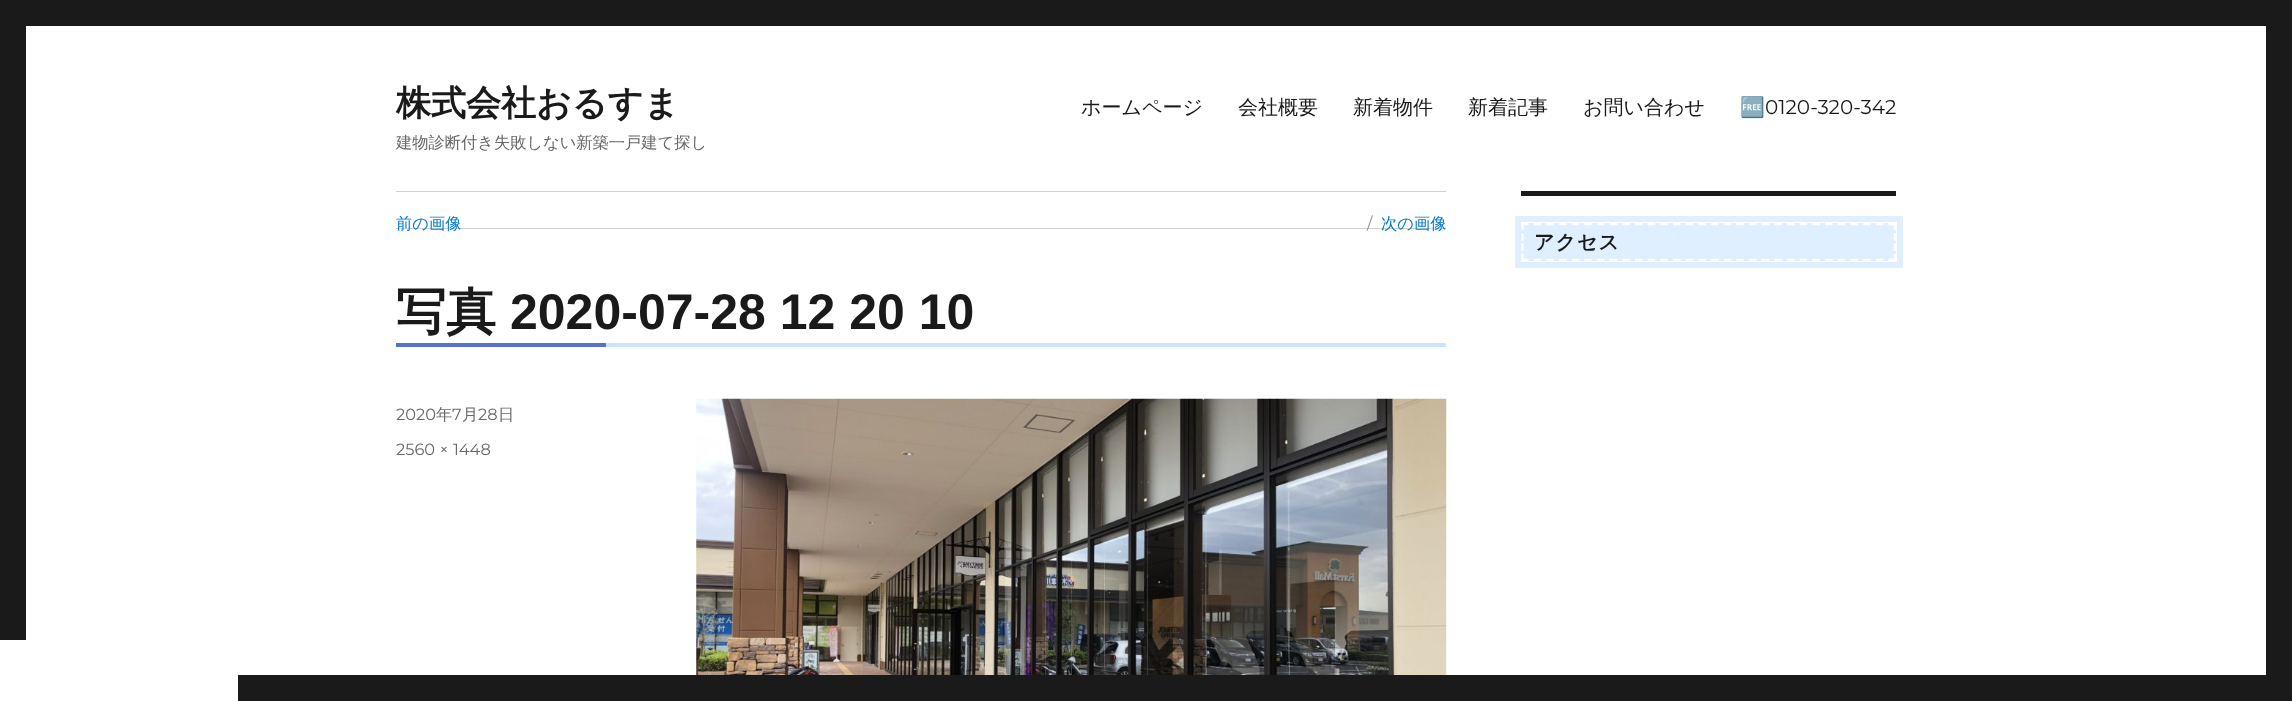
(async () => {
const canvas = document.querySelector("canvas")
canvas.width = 2292
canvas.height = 701
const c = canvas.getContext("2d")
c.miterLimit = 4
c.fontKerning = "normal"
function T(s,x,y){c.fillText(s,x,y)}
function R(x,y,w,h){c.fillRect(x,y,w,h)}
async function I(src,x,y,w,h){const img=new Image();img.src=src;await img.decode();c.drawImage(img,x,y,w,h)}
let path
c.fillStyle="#1a1a1a"
R(0,0,2292,701)
c.fillStyle="#fff"
R(26,26,2240,649)
c.font="bold 35px WenQuanYi Zen Hei"
c.fillStyle="#1a1a1a"
T("株式会社おるすま",396,115)
c.font="500 16.25px WenQuanYi Zen Hei"
c.fillStyle="#686868"
T("建物診断付き失敗しない新築一戸建て探し",396,148)
c.font="500 20px WenQuanYi Zen Hei"
c.fillStyle="#1a1a1a"
T("ホームページ",1081,114)
T("会社概要",1238,114)
T("新着物件",1353,114)
T("新着記事",1468,114)
T("お問い合わせ",1583,114)
c.font="20px Noto Color Emoji"
T("🆓",1740,114)
c.font="20px Montserrat"
T("0120-320-342",1765,114)
c.fillStyle="#d1d1d1"
R(396,191,1050,1)
R(396,228,1050,1)
c.font="500 16.25px WenQuanYi Zen Hei"
c.fillStyle="#007acc"
T("前の画像",396,229)
c.font="16.25px Montserrat"
c.fillStyle="#949494"
T("/",1367,229)
c.font="500 16.25px WenQuanYi Zen Hei"
c.fillStyle="#007acc"
T("次の画像",1381,229)
c.fillStyle="#cce4ff"
R(606,343,840,4)
c.font="bold 50px WenQuanYi Zen Hei"
c.fillStyle="#1a1a1a"
T("写真",396,329)
c.font="bold 50px Liberation Sans"
T("2020-07-28 12 20 10",510,329)
c.fillStyle="#5472cd"
R(396,343,210,4)
c.font="16.25px Montserrat"
c.fillStyle="#686868"
T("2020",396,420)
c.font="500 16.25px WenQuanYi Zen Hei"
T("年",436,420)
c.font="16.25px Montserrat"
T("7",452,420)
c.font="500 16.25px WenQuanYi Zen Hei"
T("月",462,420)
c.font="16.25px Montserrat"
T("28",478,420)
c.font="500 16.25px WenQuanYi Zen Hei"
T("日",498,420)
c.font="16.25px Montserrat"
T("2560 × 1448",396,455)
await I("1.png",696,398,751,277)
c.fillStyle="#1a1a1a"
R(1521,191,375,5)
c.strokeStyle="#dfefff"
c.lineWidth=6
c.strokeRect(1518,219,382,46)
c.fillStyle="#dfefff"
R(1521,223,375,38)
path = new Path2D("M1521 224h375")
c.strokeStyle="#fff"
c.lineWidth=2.5
c.setLineDash([7.5,5.17])
c.stroke(path)
path = new Path2D("M1895 222.5v38.5")
c.setLineDash([7.5,2.91])
c.stroke(path)
path = new Path2D("M1521 260h375")
c.setLineDash([7.5,5.17])
c.stroke(path)
path = new Path2D("M1522.5 222.5v38.5")
c.setLineDash([7.5,2.91])
c.stroke(path)
c.letterSpacing="1px"
c.font="bold 20px WenQuanYi Zen Hei"
c.fillStyle="#1a1a1a"
T("アクセス",1534,249)
c.fillStyle="#fff"
R(0,640,238,61)
})()
